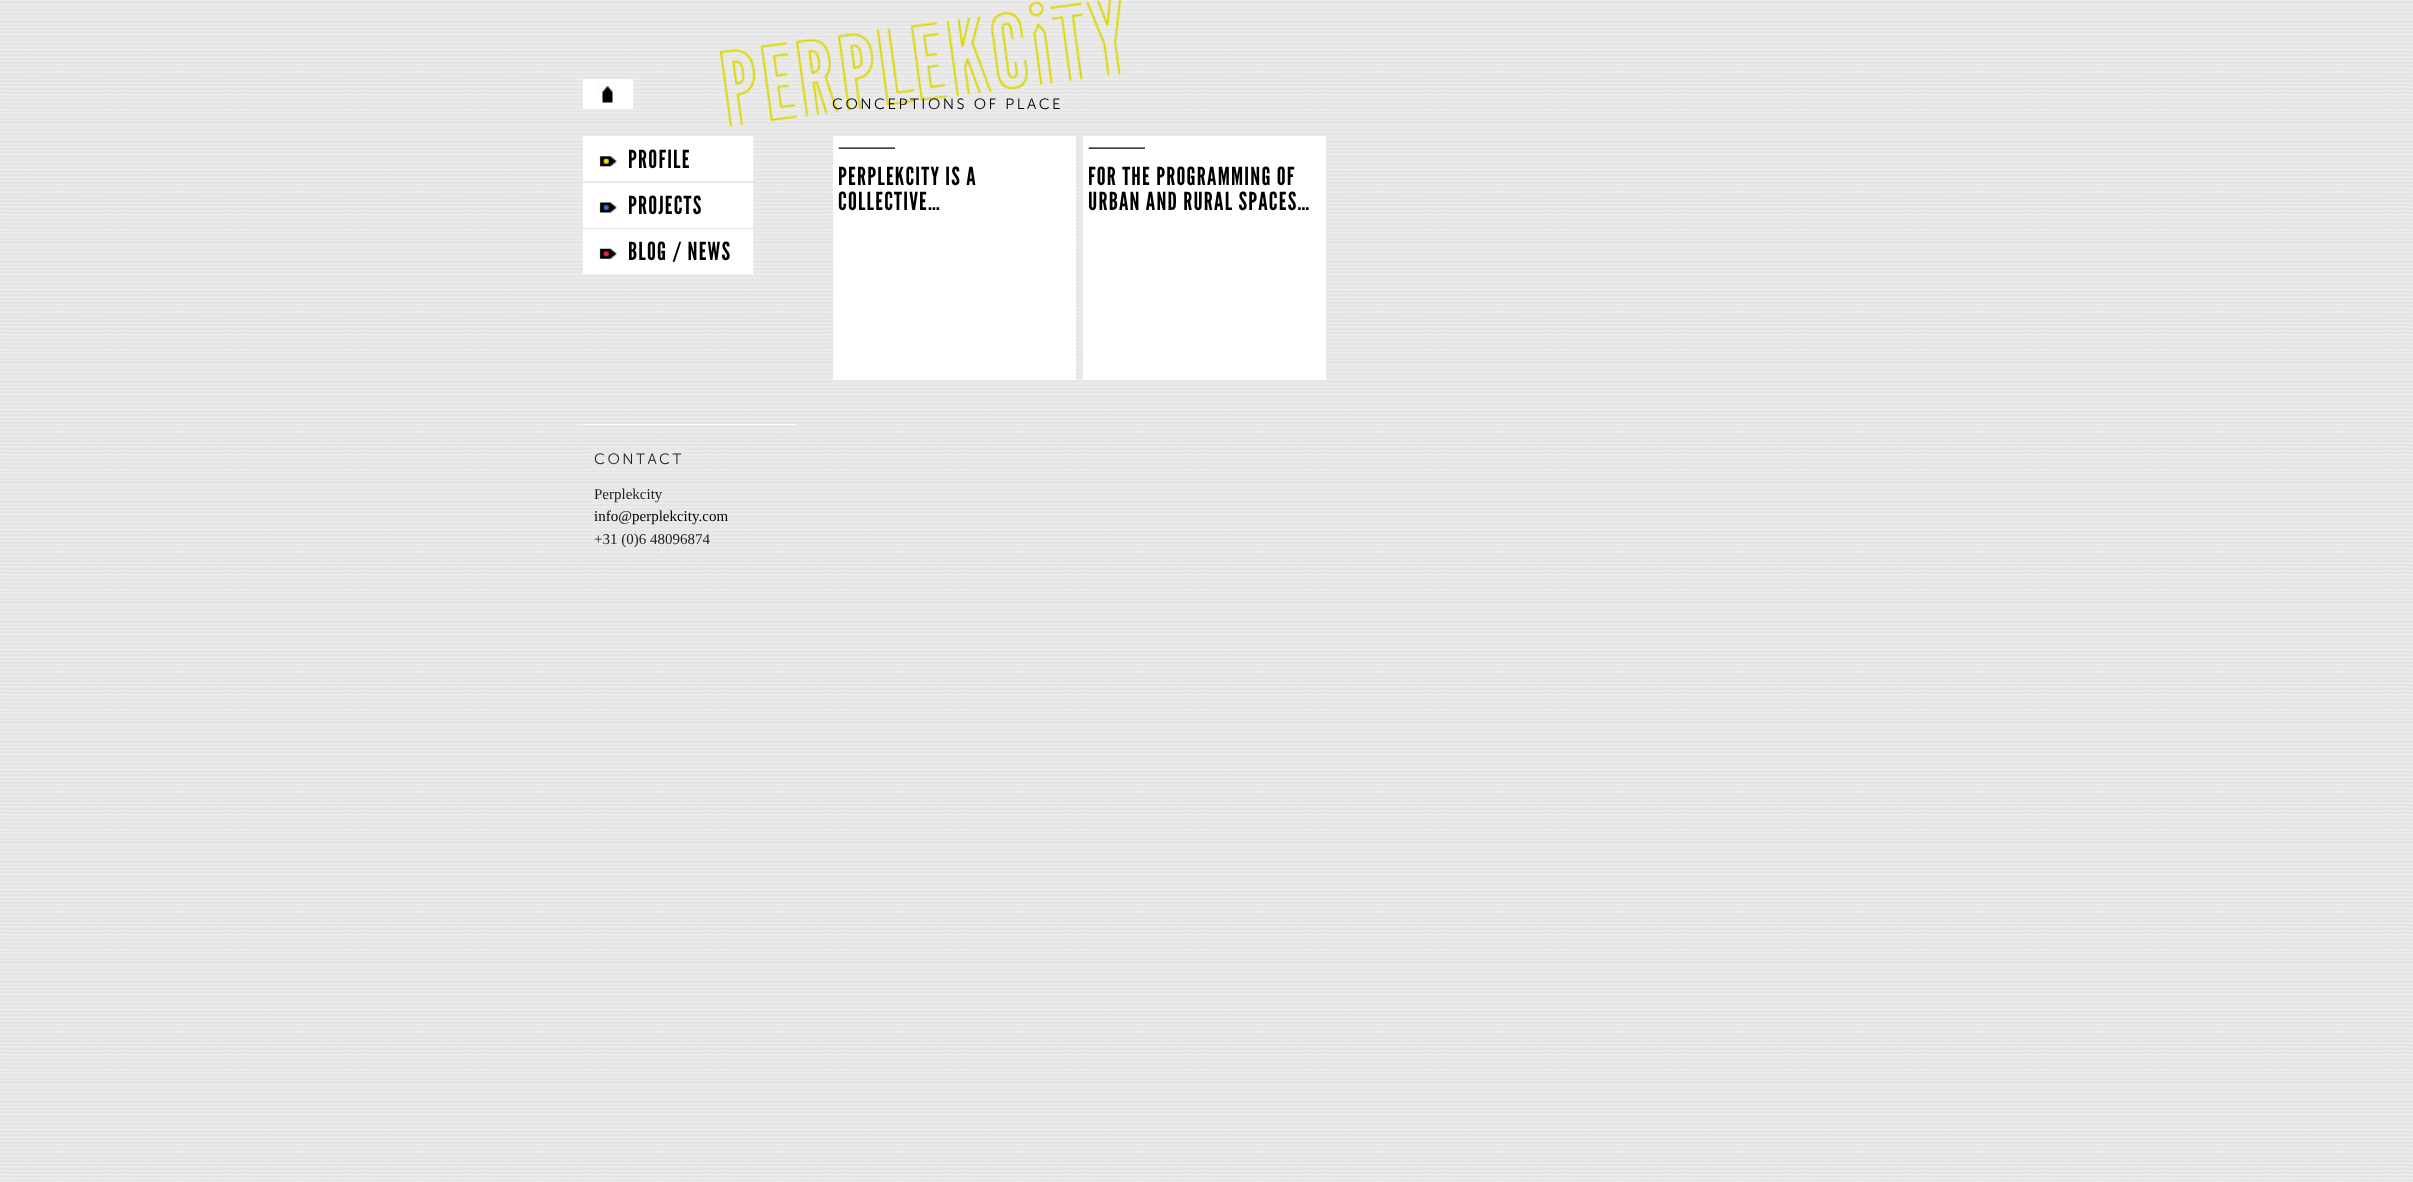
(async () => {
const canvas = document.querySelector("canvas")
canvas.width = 2413
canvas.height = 1182
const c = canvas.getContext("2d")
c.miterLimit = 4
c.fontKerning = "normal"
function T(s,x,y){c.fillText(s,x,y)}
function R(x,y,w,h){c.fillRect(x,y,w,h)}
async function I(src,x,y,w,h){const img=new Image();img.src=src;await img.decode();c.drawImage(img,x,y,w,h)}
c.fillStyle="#fff"
R(0,0,2413,1182)
await I("1.png",0,0,2413,1182)
R(583,79,50,30)
await I("2.png",596,82,19,21)
await I("3.png",720,0,402,127)
c.letterSpacing="2.5px"
c.font="300 15px Museo Sans"
c.fillStyle="#000"
T("CONCEPTIONS OF PLACE",832,109)
c.fillStyle="#fff"
R(583,136,170,45)
await I("4.png",599,156,18,11)
c.letterSpacing="1.25px"
c.font="25px League Gothic"
c.fillStyle="#000"
T("PROFILE",628,168)
c.fillStyle="#fff"
R(583,183,170,45)
await I("5.png",599,202,18,11)
c.fillStyle="#000"
T("PROJECTS",628,214)
c.fillStyle="#fff"
R(583,229,170,45)
await I("6.png",599,248,18,11)
c.fillStyle="#000"
T("BLOG / NEWS",628,260)
c.fillStyle="#fff"
R(583,424,212,1)
c.letterSpacing="2.5px"
c.font="300 15px Museo Sans"
c.fillStyle="#222"
T("CONTACT",594,464)
c.letterSpacing="0px"
c.font="15px Liberation Serif"
T("Perplekcity",594,499)
c.fillStyle="#000"
T("info@perplekcity.com",594,521)
c.fillStyle="#222"
T("+31 (0)6 48096874",594,544)
c.fillStyle="#fff"
R(833,136,243,244)
await I("7.png",838,147,57,2)
c.letterSpacing="1.25px"
c.font="25px League Gothic"
c.fillStyle="#000"
T("PERPLEKCITY IS A",838,185)
T("COLLECTIVE…",838,210)
c.fillStyle="#fff"
R(1083,136,243,244)
await I("7.png",1088,147,57,2)
c.fillStyle="#000"
T("FOR THE PROGRAMMING OF",1088,185)
T("URBAN AND RURAL SPACES…",1088,210)
})()
